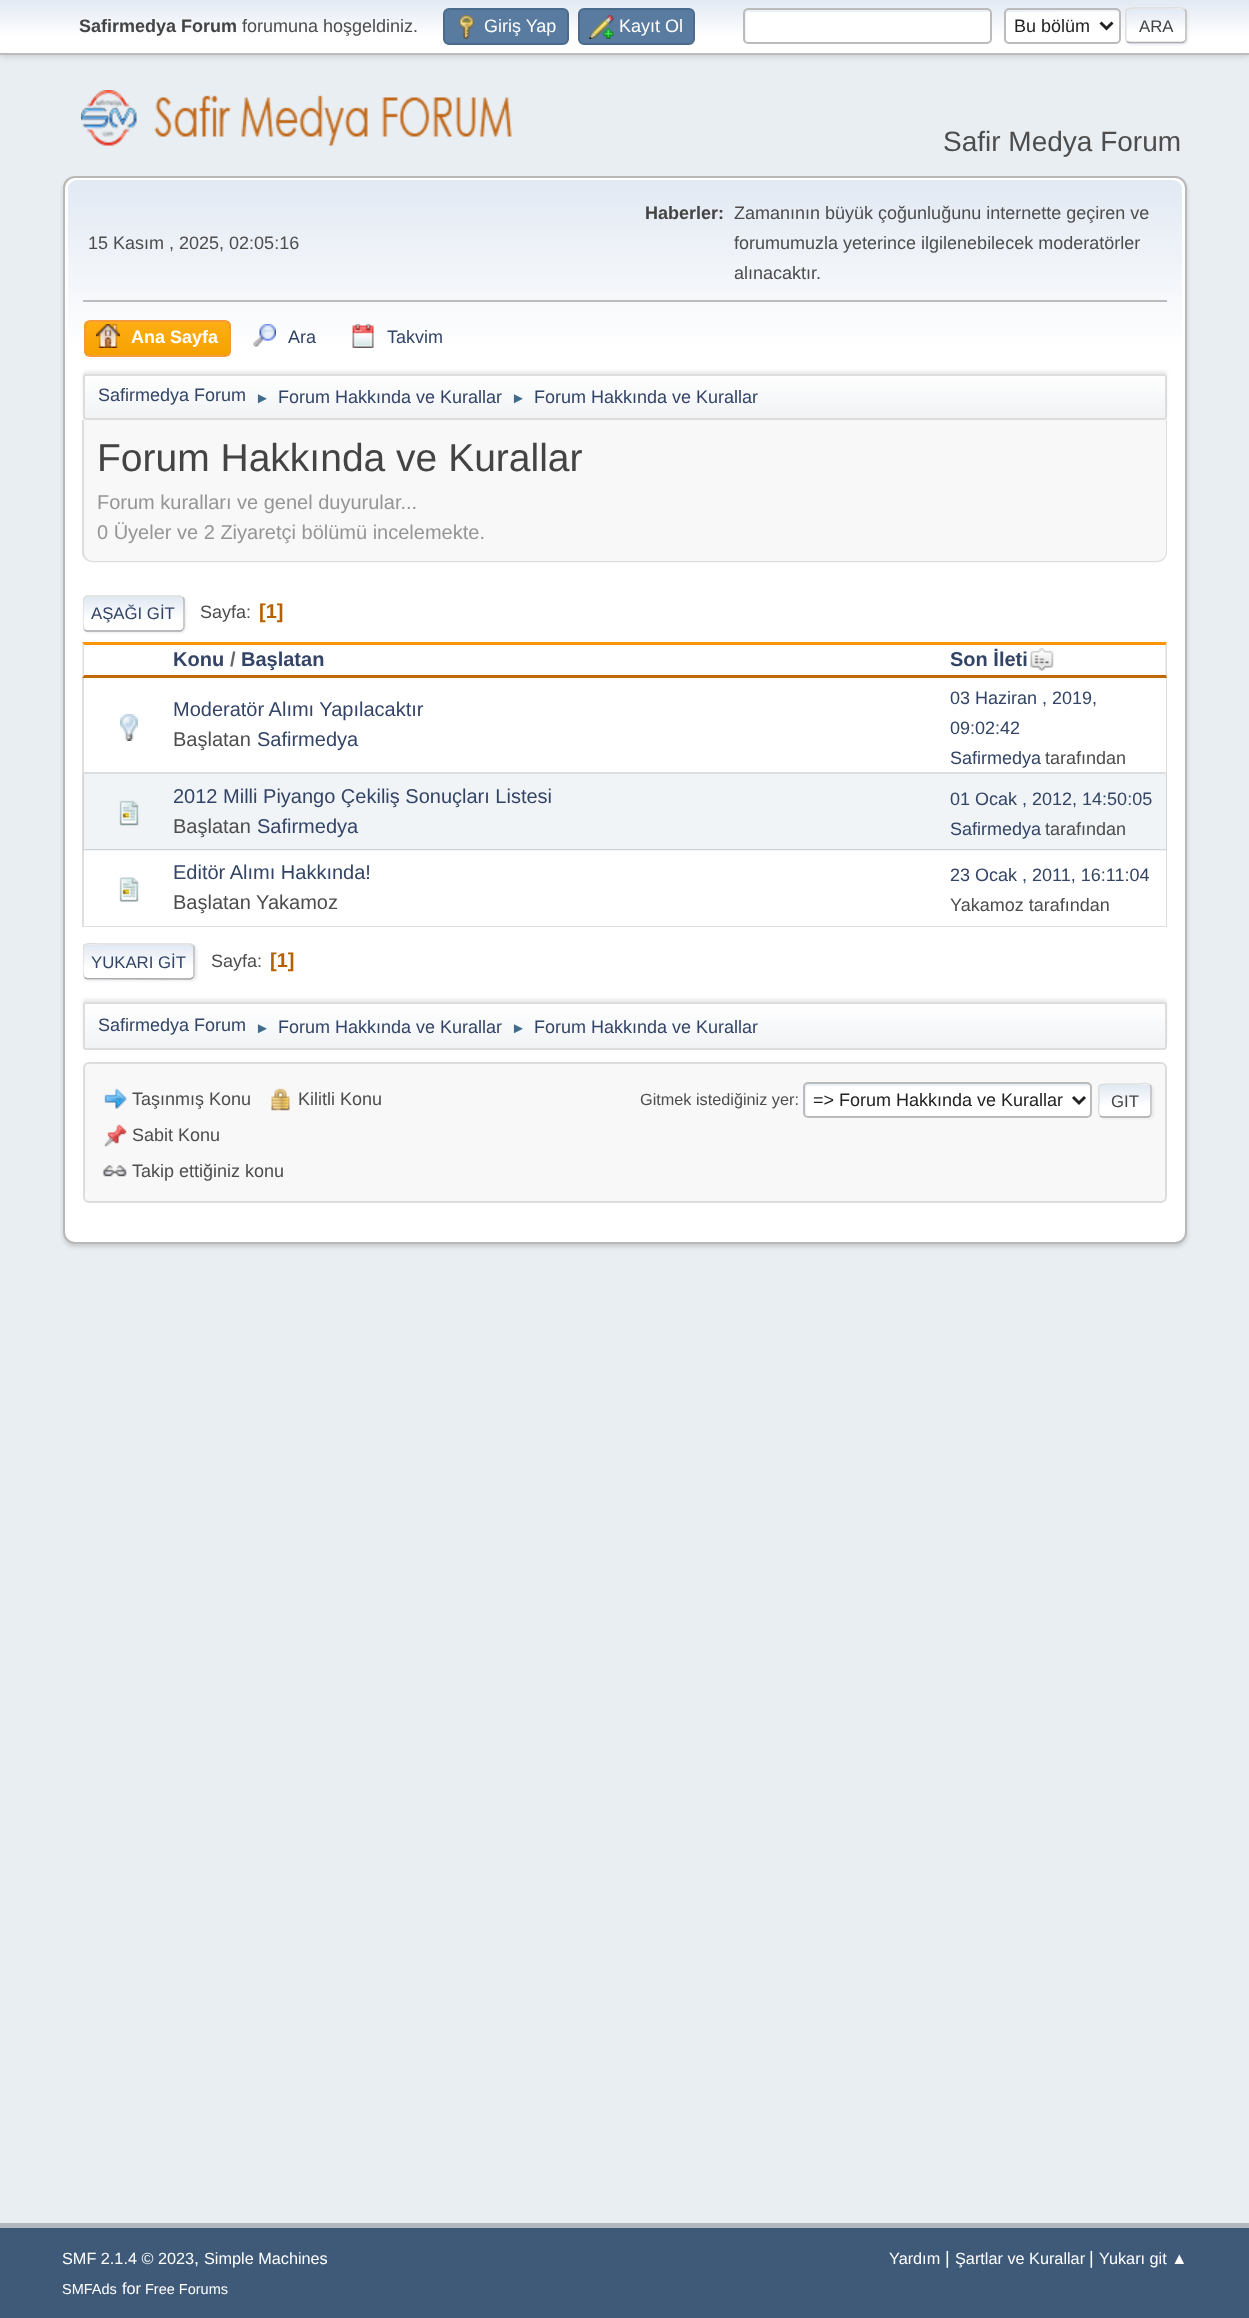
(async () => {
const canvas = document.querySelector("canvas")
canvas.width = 1249
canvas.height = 2318
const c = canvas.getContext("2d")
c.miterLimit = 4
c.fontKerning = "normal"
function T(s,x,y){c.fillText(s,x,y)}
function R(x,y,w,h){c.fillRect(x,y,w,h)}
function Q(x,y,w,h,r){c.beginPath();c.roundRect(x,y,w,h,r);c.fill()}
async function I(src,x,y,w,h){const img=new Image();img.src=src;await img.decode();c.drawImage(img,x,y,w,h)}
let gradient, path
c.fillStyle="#e9eef2"
R(0,0,1249,2318)
c.fillStyle="#00000029"
c.filter="blur(3px)"
c.beginPath()
c.rect(0,2,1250,54)
c.fill()
c.filter="none"
gradient = c.createLinearGradient(625,0,625,53)
gradient.addColorStop(0,"#e2e9f3")
gradient.addColorStop(.7,"#fff")
c.fillStyle = gradient
R(0,0,1249,53)
c.fillStyle="#bbb"
R(0,53,1249,2)
c.font="bold 18px Liberation Sans"
c.fillStyle="#444"
T("Safirmedya Forum",79,32)
c.font="18px Liberation Sans"
c.fillStyle="#4d4d4d"
T("forumuna hoşgeldiniz.",242,32)
c.fillStyle="#597b9f"
c.beginPath()
c.roundRect(444,9,124,35,5)
c.fill()
c.strokeStyle="#4a6b8c"
c.lineWidth=2
c.stroke()
await I("1.png",458,15,17,24)
c.fillStyle="#fff"
T("Giriş Yap",484,32)
c.fillStyle="#597b9f"
c.beginPath()
c.roundRect(579,9,115,35,5)
c.fill()
c.stroke()
await I("2.png",589,15,25,24)
c.fillStyle="#fff"
T("Kayıt Ol",619,32)
Q(743,8,249,36,5)
c.fillStyle="#ecf1f8"
path = new Path2D("M748 12h242c0-2-1-3-3-3h-240c-2 0-3 1-3 3v27c0 1 1 2 2 3v-27c0-2 1-3 2-3z")
c.fill(path)
c.beginPath()
c.roundRect(744,9,247,34,4)
c.strokeStyle="#bbb"
c.stroke()
c.fillStyle="#fff"
Q(1004,8,117,36,5)
c.fillStyle="#ecf1f8"
path = new Path2D("M1010 12c11 0 108-1 109 0c0-6-14-3-21-3h-72c-24 0-21-4-21 17c0 2-1 13 1 15v-26c0-2 2-3 4-3z")
c.fill(path)
c.beginPath()
c.roundRect(1005,9,115,34,4)
c.stroke()
path = new Path2D("M1100.5 22.5l6 6l6-6")
c.strokeStyle="#222"
c.lineWidth=3
c.stroke(path)
c.fillStyle="#222"
T("Bu bölüm",1014,32)
c.fillStyle="#dddddd91"
c.filter="blur(1px)"
c.beginPath()
c.roundRect(1127,9,61,36,5)
c.fill()
c.filter="none"
c.save()
c.beginPath()
c.roundRect(1125,8,62,36,5)
c.clip()
gradient = c.createLinearGradient(1156,-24,1156,9)
gradient.addColorStop(0,"#e2e9f3")
gradient.addColorStop(.7,"#fff")
c.fillStyle = gradient
R(1125,8,62,1)
gradient = c.createLinearGradient(1156,9,1156,42)
gradient.addColorStop(0,"#e2e9f3")
gradient.addColorStop(.7,"#fff")
c.fillStyle = gradient
R(1125,9,62,33)
gradient = c.createLinearGradient(1156,42,1156,75)
gradient.addColorStop(0,"#e2e9f3")
gradient.addColorStop(.7,"#fff")
c.fillStyle = gradient
R(1125,42,62,2)
c.restore()
path = new Path2D("M1184.5 9.5c1 .5 1.5 1.5 1.5 2.5v27c0 1-.5 2-1.5 2.5")
c.strokeStyle="#bbb"
c.lineWidth=1.5
c.stroke(path)
path = new Path2D("M1184.5 41.5l-2 1h-53.5l-2-1")
c.strokeStyle="#aaa"
c.stroke(path)
path = new Path2D("M1127 41.5c-2.5-2-1-13-1-16c0-17-4-17.5 12-17.5h35c1.5 0 9-1 11.5 1.5")
c.strokeStyle="#ddd"
c.stroke(path)
c.font="16.75px Liberation Sans"
c.fillStyle="#444"
T("ARA",1139,32)
await I("3.png",81,90,431,56)
c.font="28px Liberation Sans"
c.fillStyle="#4d4d4d"
T("Safir Medya Forum",943,151)
c.fillStyle="#00000024"
c.filter="blur(2px)"
c.beginPath()
c.roundRect(63,179,1124,1068,12)
c.fill()
c.filter="none"
c.fillStyle="#fff"
c.beginPath()
c.roundRect(64,177,1122,1066,11)
c.fill()
c.strokeStyle="#b8b8b8"
c.lineWidth=2
c.stroke()
gradient = c.createLinearGradient(625,180,625,423)
gradient.addColorStop(0,"#e2e9f3")
gradient.addColorStop(.7,"#fff")
c.fillStyle = gradient
c.beginPath()
c.roundRect(68,180,1114,243,[9,9,0,0])
c.fill()
c.fillStyle="#bbb"
R(83,300,1084,2)
c.font="18px Liberation Sans"
c.fillStyle="#4d4d4d"
T("15 Kasım , 2025, 02:05:16",88,249)
c.font="bold 18px Liberation Sans"
c.fillStyle="#444"
T("Haberler:",645,219)
c.font="18px Liberation Sans"
c.fillStyle="#4d4d4d"
T("Zamanının büyük çoğunluğunu internette geçiren ve",734,219)
T("forumumuzla yeterince ilgilenebilecek moderatörler",734,249)
T("alınacaktır.",734,279)
c.save()
c.beginPath()
c.roundRect(84,320,147,37,6)
c.clip()
gradient = c.createLinearGradient(158,321,158,356)
gradient.addColorStop(0,"#ffae14")
gradient.addColorStop(1,"#f5a100")
c.fillStyle = gradient
R(84,321,147,35)
c.restore()
c.beginPath()
c.roundRect(85,321,145,35,5)
c.strokeStyle="#f49a3a"
c.stroke()
await I("4.png",96,324,24,24)
c.font="bold 18px Liberation Sans"
c.fillStyle="#fff"
T("Ana Sayfa",131,343)
await I("5.png",253,324,23,23)
c.font="18px Liberation Sans"
c.fillStyle="#346"
T("Ara",288,343)
await I("6.png",352,324,22,24)
T("Takvim",387,343)
c.fillStyle="#00000014"
c.filter="blur(1.5px)"
c.beginPath()
c.roundRect(83,371,1084,46,3)
c.fill()
c.filter="none"
c.save()
c.beginPath()
c.roundRect(83,374,1084,46,3)
c.clip()
gradient = c.createLinearGradient(625,375,625,419)
gradient.addColorStop(0,"#fff")
gradient.addColorStop(.95,"#f1f3f5")
c.fillStyle = gradient
R(83,375,1084,44)
c.restore()
c.beginPath()
c.roundRect(84,375,1082,44,2)
c.strokeStyle="#ddd"
c.stroke()
c.fillStyle="#346"
T("Safirmedya Forum",98,401)
c.font="15px Liberation Sans"
c.fillStyle="#3f6b8c"
T("►",255,403)
c.font="18px Liberation Sans"
c.fillStyle="#346"
T("Forum Hakkında ve Kurallar",278,403)
c.font="15px Liberation Sans"
c.fillStyle="#3f6b8c"
T("►",511,403)
c.font="18px Liberation Sans"
c.fillStyle="#346"
T("Forum Hakkında ve Kurallar",534,403)
c.fillStyle="#f8f8f8"
c.beginPath()
c.roundRect(83,420,1084,143,[0,0,11,11])
c.fill()
c.fillStyle="#ddd"
path = new Path2D("M82 420h1085v132c0 6-5 10-11 10h-1063c-6 0-11-4-11-10zm2 0h1082v132c0 5-5 9-10 9h-1063c-5 0-9-4-9-9z")
c.fill(path,"evenodd")
c.font="39px Liberation Sans"
c.fillStyle="#444"
T("Forum Hakkında ve Kurallar",97,471)
c.font="20px Liberation Sans"
c.fillStyle="#959595"
T("Forum kuralları ve genel duyurular...",97,509)
T("0 Üyeler ve 2 Ziyaretçi bölümü incelemekte.",97,539)
c.fillStyle="#dddddd91"
c.filter="blur(1px)"
c.beginPath()
c.roundRect(84,597,102,36,5)
c.fill()
c.filter="none"
c.save()
c.beginPath()
c.roundRect(83,596,102,36,5)
c.clip()
gradient = c.createLinearGradient(134,597,134,630)
gradient.addColorStop(0,"#e2e9f3")
gradient.addColorStop(.7,"#fff")
c.fillStyle = gradient
R(83,597,102,33)
gradient = c.createLinearGradient(134,630,134,663)
gradient.addColorStop(0,"#e2e9f3")
gradient.addColorStop(.7,"#fff")
c.fillStyle = gradient
R(83,630,102,2)
c.restore()
path = new Path2D("M182.5 597.5c1 .5 1.5 1.5 1.5 2.5v27c0 1-.5 2-1.5 2.5")
c.strokeStyle="#bbb"
c.lineWidth=1.5
c.stroke(path)
path = new Path2D("M182.5 629.5c-.5 1-1.5 1.5-2.5 1.5h-93c-1 0-2-.5-2.5-1.5")
c.strokeStyle="#aaa"
c.stroke(path)
c.save()
c.beginPath()
c.rect(83,585,1084,57)
c.clip()
path = new Path2D("M84.5 629.5c-2.5-2.5-1.5-8.5-1.5-11.5v-13.5c0-3-.5-8 4-8.5h93l2.5 1.5")
c.strokeStyle="#ddd"
c.stroke(path)
c.restore()
c.font="16.75px Liberation Sans"
c.fillStyle="#346"
T("AŞAĞI GİT",91,619)
c.font="18px Liberation Sans"
c.fillStyle="#4d4d4d"
T("Sayfa:",200,618)
c.font="bold 20px Liberation Sans"
c.fillStyle="#b46100"
T("[1]",259,618)
c.fillStyle="#ff9400"
path = new Path2D("M82 642h1085l-1 3h-1082z")
c.fill(path)
c.fillStyle="#ddd"
path = new Path2D("M1167 642v36l-1.5-3v-30z")
c.fill(path)
c.fillStyle="#bf6900"
path = new Path2D("M1167 678h-1085l2-3h1082z")
c.fill(path)
c.fillStyle="#ddd"
path = new Path2D("M82.5 678v-36l1.5 3v30z")
c.fill(path)
c.fillStyle="#346"
T("Konu",173,666)
c.fillStyle="#666"
T("/",230,666)
c.fillStyle="#346"
T("Başlatan",241,666)
T("Son İleti",950,666)
await I("7.png",1030,648,24,23)
c.fillStyle="#dcdcdc"
path = new Path2D("M1167 678v96l-1-2v-94z")
c.fill(path)
c.fillStyle="#00000021"
path = new Path2D("M1167 774h-1085l2-2h1082z")
c.fill(path)
path = new Path2D("M82 774v-96h2v94z")
c.fill(path)
await I("8.png",120,714,18,27)
c.font="20px Liberation Sans"
c.fillStyle="#346"
T("Moderatör Alımı Yapılacaktır",173,716)
c.fillStyle="#4d4d4d"
T("Başlatan",173,746)
c.fillStyle="#346"
T("Safirmedya",257,746)
c.font="18px Liberation Sans"
T("03 Haziran , 2019,",950,704)
T("09:02:42",950,734)
T("Safirmedya",950,764)
c.fillStyle="#4d4d4d"
T("tarafından",1045,764)
c.fillStyle="#f0f4f7"
R(83,774,1084,77)
c.fillStyle="#d1d4d7"
path = new Path2D("M1167 774v76l-1-1v-75z")
c.fill(path)
c.fillStyle="#00000021"
path = new Path2D("M1167 850h-1085l2-1h1082z")
c.fill(path)
path = new Path2D("M82 850v-76h2v75z")
c.fill(path)
await I("9.png",119,800,20,26)
c.font="20px Liberation Sans"
c.fillStyle="#346"
T("2012 Milli Piyango Çekiliş Sonuçları Listesi",173,803)
c.fillStyle="#4d4d4d"
T("Başlatan",173,833)
c.fillStyle="#346"
T("Safirmedya",257,833)
c.font="18px Liberation Sans"
T("01 Ocak , 2012, 14:50:05",950,805)
T("Safirmedya",950,835)
c.fillStyle="#4d4d4d"
T("tarafından",1045,835)
c.fillStyle="#00000021"
path = new Path2D("M1167 850v77l-1-1v-76z")
c.fill(path)
path = new Path2D("M1167 927h-1085l2-1h1082z")
c.fill(path)
path = new Path2D("M82 927v-77h2v76z")
c.fill(path)
await I("10.png",119,877,20,25)
c.font="20px Liberation Sans"
c.fillStyle="#346"
T("Editör Alımı Hakkında!",173,879)
c.fillStyle="#4d4d4d"
T("Başlatan Yakamoz",173,909)
c.font="18px Liberation Sans"
c.fillStyle="#346"
T("23 Ocak , 2011, 16:11:04",950,881)
c.fillStyle="#4d4d4d"
T("Yakamoz tarafından",950,911)
c.fillStyle="#dddddd91"
c.filter="blur(1px)"
c.beginPath()
c.roundRect(84,945,113,36,5)
c.fill()
c.filter="none"
c.fillStyle="#fff"
Q(83,944,112,36,5)
c.save()
c.beginPath()
c.roundRect(83,944,112,36,5)
c.clip()
gradient = c.createLinearGradient(139,945,139,978)
gradient.addColorStop(0,"#e2e9f3")
gradient.addColorStop(.7,"#fff")
c.fillStyle = gradient
R(83,945,112,33)
gradient = c.createLinearGradient(139,978,139,1011)
gradient.addColorStop(0,"#e2e9f3")
gradient.addColorStop(.7,"#fff")
c.fillStyle = gradient
R(83,978,112,2)
c.restore()
path = new Path2D("M193 945.5c1 .5 1 1.5 1 2.5v27c0 1 0 2-1 2.5")
c.strokeStyle="#bbb"
c.stroke(path)
path = new Path2D("M193 977.5l-2.5 1.5l-104-.5l-2-1")
c.strokeStyle="#aaa"
c.stroke(path)
c.save()
c.beginPath()
c.rect(83,933,1084,57)
c.clip()
path = new Path2D("M84.5 977.5c-2.5-2-1.5-13-1.5-16c0-21.5-2.5-17.5 21-17.5h86.5l2.5 1.5")
c.strokeStyle="#ddd"
c.stroke(path)
c.restore()
c.font="16.75px Liberation Sans"
c.fillStyle="#346"
T("YUKARI GİT",91,968)
c.font="18px Liberation Sans"
c.fillStyle="#4d4d4d"
T("Sayfa:",211,967)
c.font="bold 20px Liberation Sans"
c.fillStyle="#b46100"
T("[1]",270,967)
c.fillStyle="#00000014"
c.filter="blur(1.5px)"
c.beginPath()
c.roundRect(83,999,1084,48,3)
c.fill()
c.filter="none"
c.save()
c.beginPath()
c.roundRect(83,1002,1084,48,3)
c.clip()
gradient = c.createLinearGradient(625,1004,625,1049)
gradient.addColorStop(0,"#fff")
gradient.addColorStop(.95,"#f1f3f5")
c.fillStyle = gradient
R(83,1004,1084,45)
c.restore()
c.beginPath()
c.roundRect(84,1003,1082,46,2)
c.strokeStyle="#ddd"
c.lineWidth=2
c.stroke()
c.font="18px Liberation Sans"
c.fillStyle="#346"
T("Safirmedya Forum",98,1031)
c.font="15px Liberation Sans"
c.fillStyle="#3f6b8c"
T("►",255,1033)
c.font="18px Liberation Sans"
c.fillStyle="#346"
T("Forum Hakkında ve Kurallar",278,1033)
c.font="15px Liberation Sans"
c.fillStyle="#3f6b8c"
T("►",511,1033)
c.font="18px Liberation Sans"
c.fillStyle="#346"
T("Forum Hakkında ve Kurallar",534,1033)
c.fillStyle="#f8f8f8"
c.beginPath()
c.roundRect(84,1063,1082,139,5)
c.fill()
c.stroke()
await I("11.png",271,1088,19,23)
c.fillStyle="#4d4d4d"
T("Kilitli Konu",298,1105)
await I("12.png",104,1124,23,23)
T("Sabit Konu",132,1141)
await I("13.png",103,1165,24,12)
T("Takip ettiğiniz konu",132,1177)
await I("14.png",104,1088,23,21)
T("Taşınmış Konu",132,1105)
c.font="16.25px Liberation Sans"
T("Gitmek istediğiniz yer:",640,1105)
c.fillStyle="#fff"
Q(803,1082,289,36,5)
c.fillStyle="#ecf1f8"
path = new Path2D("M808 1086h281l2 1v-1c0-2-1-3-3-3h-281c-2 0-3 1-3 3v27c0 1 1 2 2 3v-27c0-2 1-3 2-3z")
c.fill(path)
c.beginPath()
c.roundRect(804,1083,287,34,4)
c.strokeStyle="#bbb"
c.stroke()
path = new Path2D("M1073 1097l6 6l6-6")
c.strokeStyle="#222"
c.lineWidth=3
c.stroke(path)
c.font="18px Liberation Sans"
c.fillStyle="#222"
T("=> Forum Hakkında ve Kurallar",813,1106)
c.fillStyle="#dddddd91"
c.filter="blur(1px)"
c.beginPath()
c.roundRect(1100,1085,54,34,5)
c.fill()
c.filter="none"
c.save()
c.beginPath()
c.roundRect(1098,1083,54,35,5)
c.clip()
gradient = c.createLinearGradient(1125,1053,1125,1085)
gradient.addColorStop(0,"#e2e9f3")
gradient.addColorStop(.7,"#fff")
c.fillStyle = gradient
R(1098,1083,54,2)
gradient = c.createLinearGradient(1125,1085,1125,1116)
gradient.addColorStop(0,"#e2e9f3")
gradient.addColorStop(.7,"#fff")
c.fillStyle = gradient
R(1098,1085,54,31)
gradient = c.createLinearGradient(1125,1116,1125,1148)
gradient.addColorStop(0,"#e2e9f3")
gradient.addColorStop(.7,"#fff")
c.fillStyle = gradient
R(1098,1116,54,2)
c.restore()
path = new Path2D("M1150 1085c1 .5 1 1.5 1 2.5v25.5c0 1 0 2-1 2.5")
c.strokeStyle="#bbb"
c.lineWidth=1.5
c.stroke(path)
path = new Path2D("M1150 1115.5c-.5 1-1.5 1.5-2.5 1.5h-45c-1 0-2-.5-2.5-1.5")
c.strokeStyle="#aaa"
c.stroke(path)
path = new Path2D("M1100 1115.5c-2.5-2-1-12-1-15.5c0-15.5-3.5-16 11-16h30c1.5 0 8-1.5 10 1")
c.strokeStyle="#ddd"
c.stroke(path)
c.font="16.75px Liberation Sans"
c.fillStyle="#444"
T("GIT",1111,1107)
c.fillStyle="#3e5a78"
R(0,2228,1249,90)
c.fillStyle="#b2b6bd"
R(0,2223,1249,5)
c.font="16.25px Liberation Sans"
c.fillStyle="#fff"
T("SMF 2.1.4 © 2023",62,2264)
c.font="18px Liberation Sans"
T(",",194,2264)
c.font="16.25px Liberation Sans"
T("Simple Machines",204,2264)
c.font="14.5px Liberation Sans"
T("SMFAds",62,2294)
c.font="16.25px Liberation Sans"
T("for",122,2294)
c.font="14.5px Liberation Sans"
T("Free Forums",145,2294)
c.font="16.25px Liberation Sans"
T("Yardım",889,2264)
c.font="18px Liberation Sans"
T("|",945,2264)
c.font="16.25px Liberation Sans"
T("Şartlar ve Kurallar",955,2264)
c.font="18px Liberation Sans"
T("|",1089,2264)
c.font="16.25px Liberation Sans"
T("Yukarı git ▲",1099,2264)
})()
